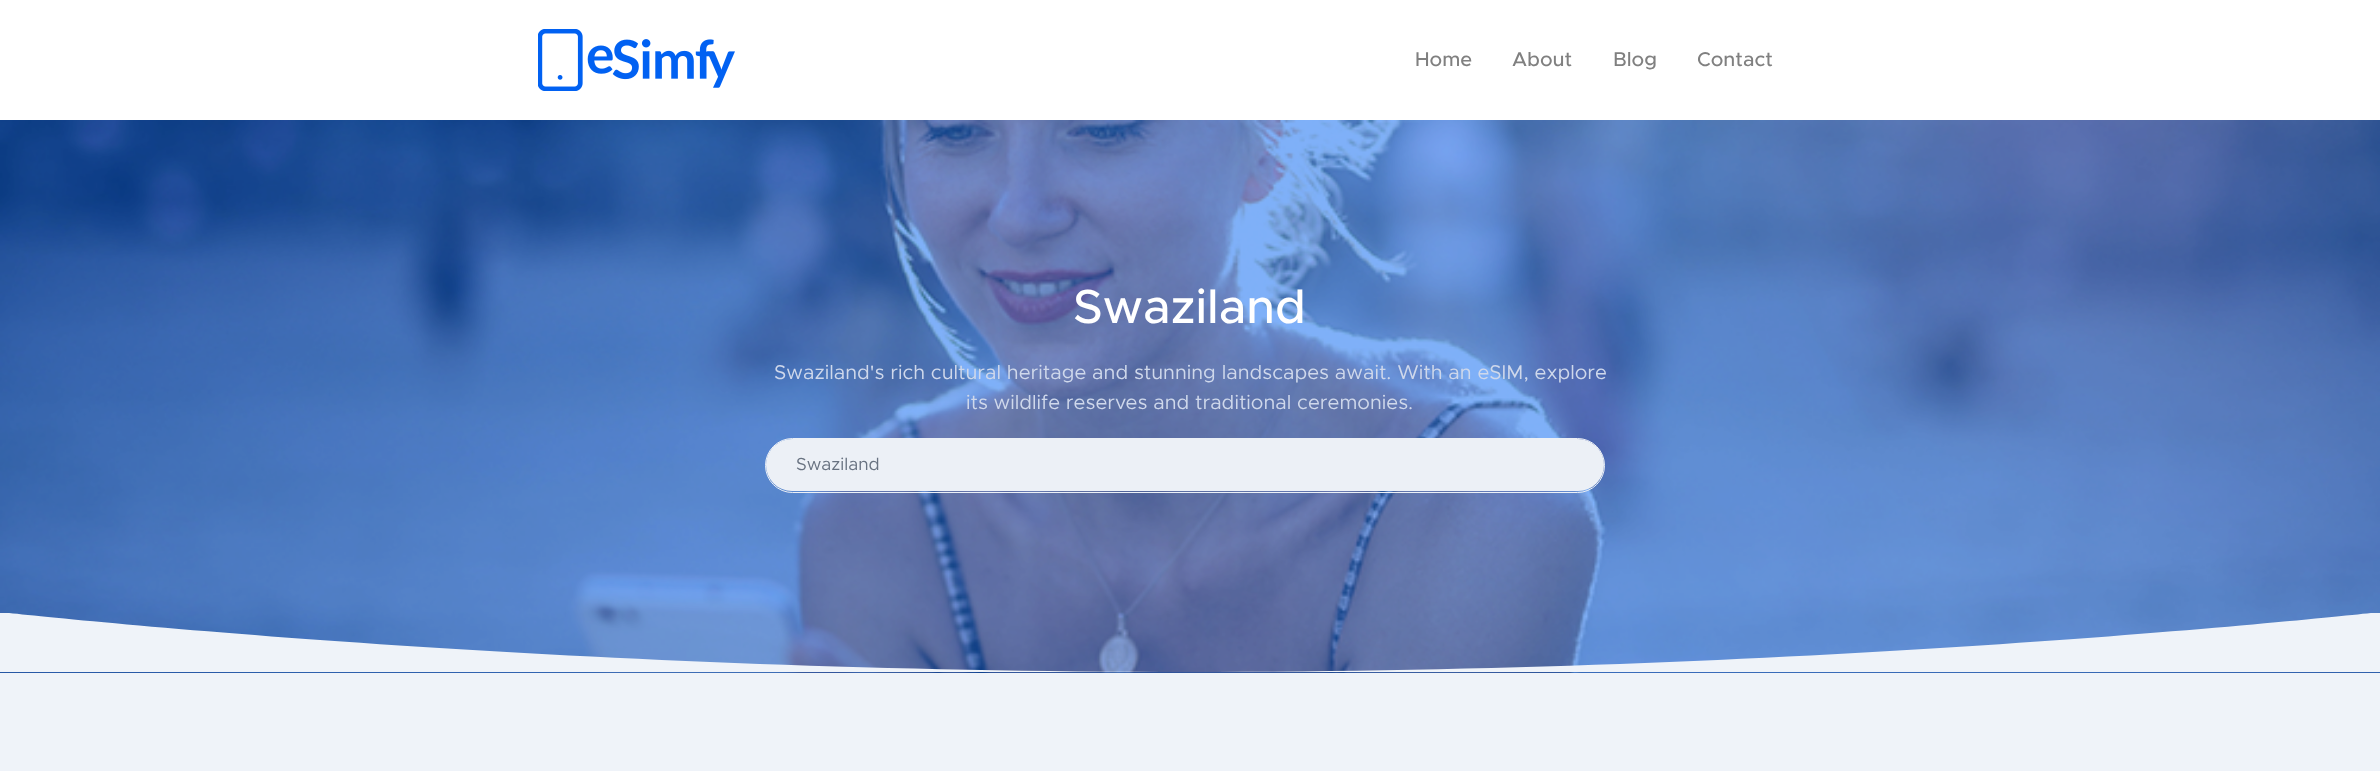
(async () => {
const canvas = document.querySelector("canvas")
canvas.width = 2380
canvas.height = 771
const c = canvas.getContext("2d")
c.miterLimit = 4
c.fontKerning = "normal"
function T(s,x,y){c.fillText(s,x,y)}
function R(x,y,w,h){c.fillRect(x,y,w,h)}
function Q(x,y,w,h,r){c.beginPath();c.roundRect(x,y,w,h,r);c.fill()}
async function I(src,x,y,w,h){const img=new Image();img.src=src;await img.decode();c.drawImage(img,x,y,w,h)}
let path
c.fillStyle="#fff"
R(0,0,2380,771)
await I("1.png",538,29,197,62)
c.font="500 20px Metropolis"
c.fillStyle="#808080"
T("Home",1415,66)
T("About",1512,66)
T("Blog",1613,66)
T("Contact",1697,66)
c.fillStyle="#10479a"
R(0,672,2380,1)
await I("2.png",0,120,2380,553)
c.font="500 48px Metropolis"
c.fillStyle="#fff"
T("Swaziland",1073,323)
c.font="20px Metropolis"
c.fillStyle="#cfd8eb"
T("Swaziland's rich cultural heritage and stunning landscapes await. With an eSIM, explore",774,379)
T("its wildlife reserves and traditional ceremonies.",966,409)
c.fillStyle="#ecf0f6"
Q(766,439,838,52,26)
c.beginPath()
c.roundRect(765.5,438.5,839,54,27)
c.strokeStyle="#ecf0f6"
c.stroke()
c.font="17.5px Metropolis"
c.fillStyle="#687281"
T("Swaziland",796,470)
c.save()
c.beginPath()
c.rect(0,613,2380,60)
c.clip()
c.fillStyle="#eff3f9"
path = new Path2D("M2380 672h-2380v-60h2380zm-2380-60c0 0 533 60 1190 60c657 0 1190-60 1190-60")
c.fill(path)
c.restore()
c.fillStyle="#eff3f9"
R(0,673,2380,98)
})()
